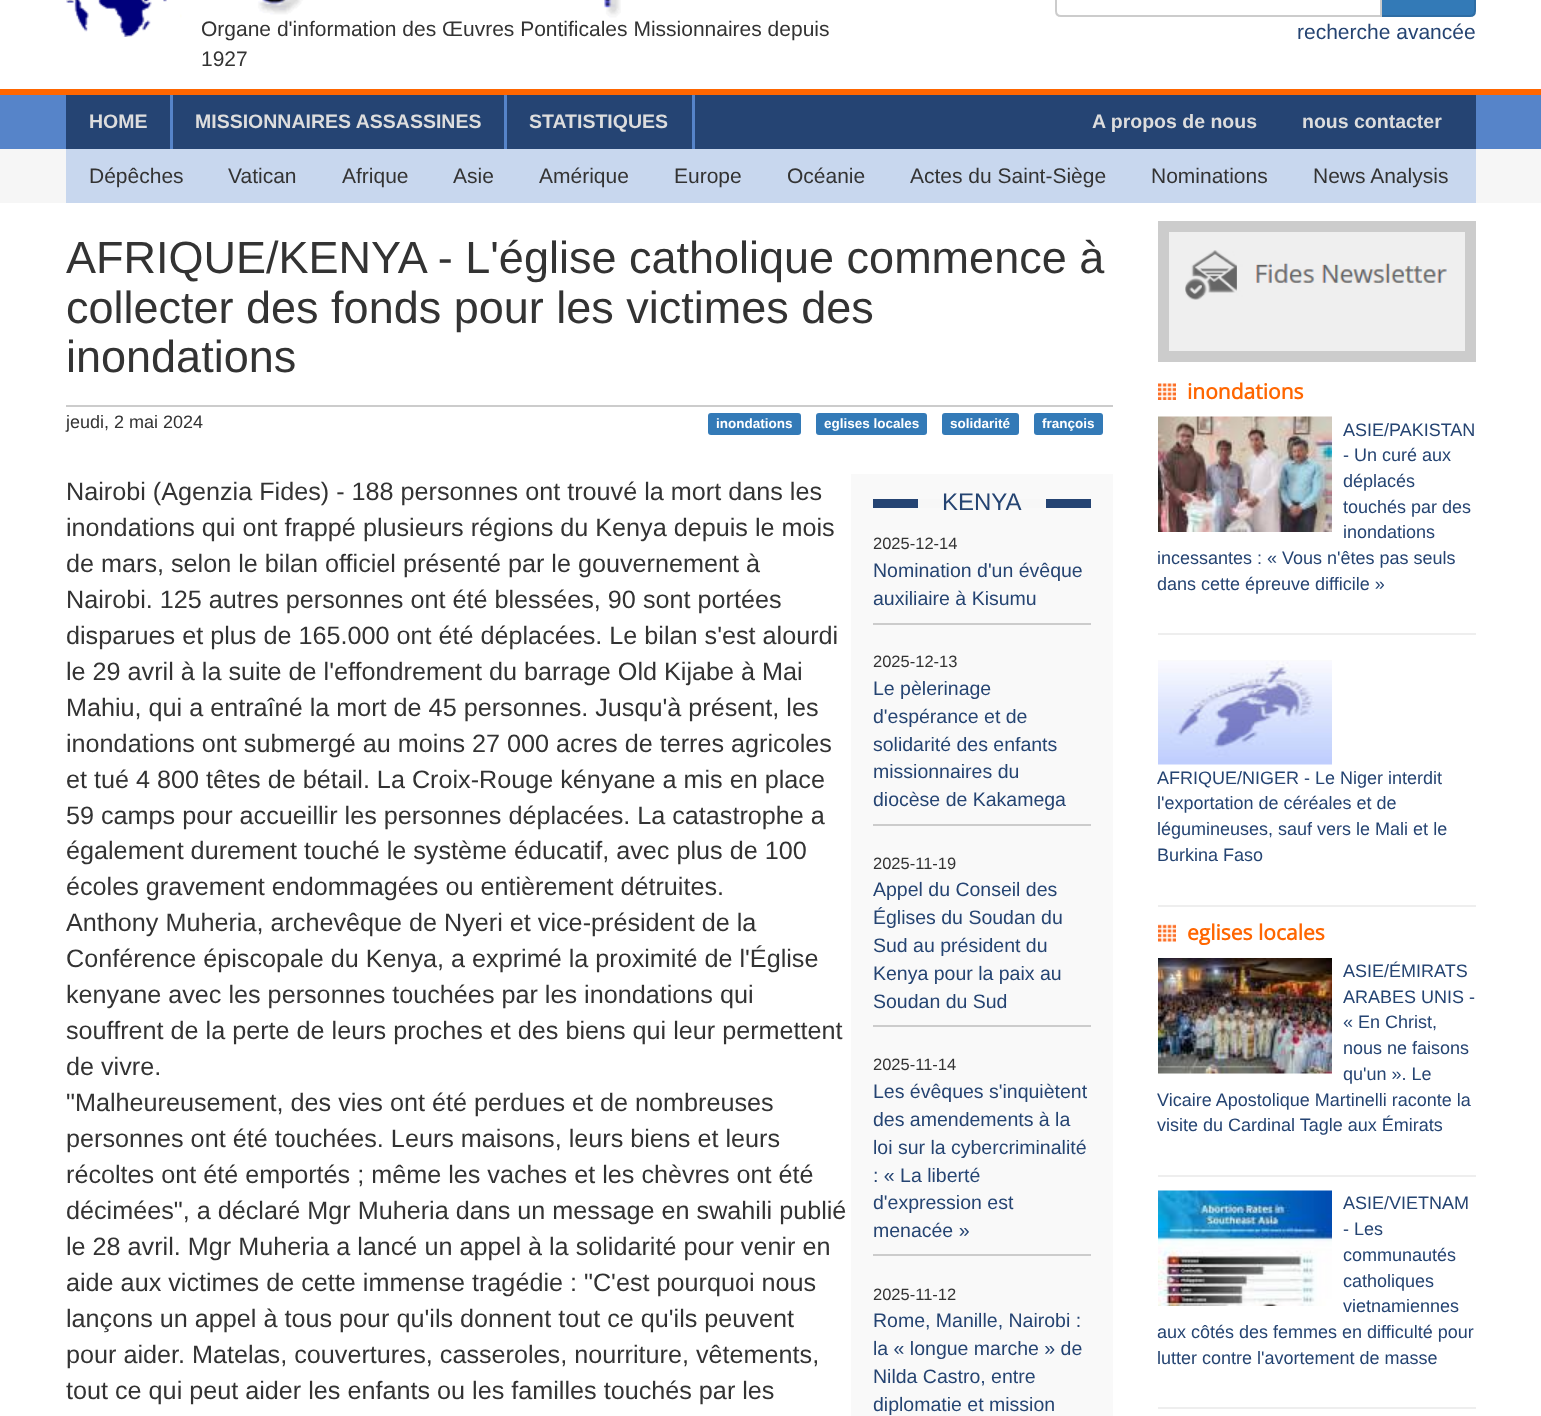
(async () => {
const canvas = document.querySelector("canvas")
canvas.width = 1541
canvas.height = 1416
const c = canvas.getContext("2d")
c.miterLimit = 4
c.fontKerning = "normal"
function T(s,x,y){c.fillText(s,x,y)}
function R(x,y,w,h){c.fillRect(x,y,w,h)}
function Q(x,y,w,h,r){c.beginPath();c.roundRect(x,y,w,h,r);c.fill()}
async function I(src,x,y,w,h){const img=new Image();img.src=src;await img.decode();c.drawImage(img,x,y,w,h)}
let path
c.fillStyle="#fff"
R(0,0,1541,1416)
c.fillStyle="#f60"
R(0,89,1541,6)
await I("1.png",66,0,555,37)
c.font="21px Liberation Sans"
c.fillStyle="#333"
T("Organe d'information des Œuvres Pontificales Missionnaires depuis",201,36)
T("1927",201,66)
c.fillStyle="#337ab7"
path = new Path2D("M1381-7h89c3 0 5 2 5 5v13c0 3-2 5-5 5h-89z")
c.fill(path)
c.strokeStyle="#2e6da4"
c.lineWidth=2
c.stroke(path)
c.fillStyle="#fff"
path = new Path2D("M1061-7h320v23h-320c-3 0-5-2-5-5v-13c0-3 2-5 5-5z")
c.fill(path)
c.strokeStyle="#ccc"
c.stroke(path)
c.fillStyle="#254472"
T("recherche avancée",1297,39)
c.fillStyle="#f6f6f6"
R(0,149,1541,54)
c.fillStyle="#5684c9"
R(0,95,1541,54)
c.fillStyle="#254473"
R(66,95,1410,54)
c.fillStyle="#5684c9"
R(170,95,3,54)
c.font="bold 19.5px Liberation Sans"
c.fillStyle="#ddd"
T("HOME",89,128)
c.fillStyle="#5684c9"
R(504,95,3,54)
c.fillStyle="#ddd"
T("MISSIONNAIRES ASSASSINES",195,128)
c.fillStyle="#5684c9"
R(692,95,3,54)
c.fillStyle="#ddd"
T("STATISTIQUES",529,128)
T("A propos de nous",1092,128)
T("nous contacter",1302,128)
c.fillStyle="#c8d7ee"
R(66,149,1410,54)
c.font="21px Liberation Sans"
c.fillStyle="#333"
T("Dépêches",89,183)
T("Vatican",228,183)
T("Afrique",342,183)
T("Asie",453,183)
T("Amérique",539,183)
T("Europe",674,183)
T("Océanie",787,183)
T("Actes du Saint-Siège",910,183)
T("Nominations",1151,183)
T("News Analysis",1313,183)
c.fillStyle="#ccc"
R(66,405,1047,2)
c.font="45px Liberation Sans"
c.fillStyle="#333"
T("AFRIQUE/KENYA - L'église catholique commence à",66,273)
T("collecter des fonds pour les victimes des",66,323)
T("inondations",66,372)
c.font="18px Liberation Sans"
T("jeudi, 2 mai 2024",66,428)
c.fillStyle="#337ab7"
Q(708,413,93,22,3)
c.font="bold 13.5px Liberation Sans"
c.fillStyle="#fff"
T("inondations",716,428)
c.fillStyle="#337ab7"
Q(816,413,111,22,3)
c.fillStyle="#fff"
T("eglises locales",824,428)
c.fillStyle="#337ab7"
Q(942,413,77,22,3)
c.fillStyle="#fff"
T("solidarité",950,428)
c.fillStyle="#337ab7"
Q(1034,413,69,22,3)
c.fillStyle="#fff"
T("françois",1042,428)
c.font="25.2px Liberation Sans"
c.fillStyle="#333"
T("Nairobi (Agenzia Fides) - 188 personnes ont trouvé la mort dans les",66,500)
T("inondations qui ont frappé plusieurs régions du Kenya depuis le mois",66,536)
T("de mars, selon le bilan officiel présenté par le gouvernement à",66,572)
T("Nairobi. 125 autres personnes ont été blessées, 90 sont portées",66,608)
T("disparues et plus de 165.000 ont été déplacées. Le bilan s'est alourdi",66,644)
T("le 29 avril à la suite de l'effondrement du barrage Old Kijabe à Mai",66,680)
T("Mahiu, qui a entraîné la mort de 45 personnes. Jusqu'à présent, les",66,716)
T("inondations ont submergé au moins 27 000 acres de terres agricoles",66,752)
T("et tué 4 800 têtes de bétail. La Croix-Rouge kényane a mis en place",66,788)
T("59 camps pour accueillir les personnes déplacées. La catastrophe a",66,824)
T("également durement touché le système éducatif, avec plus de 100",66,859)
T("écoles gravement endommagées ou entièrement détruites.",66,895)
T("Anthony Muheria, archevêque de Nyeri et vice-président de la",66,931)
T("Conférence épiscopale du Kenya, a exprimé la proximité de l'Église",66,967)
T("kenyane avec les personnes touchées par les inondations qui",66,1003)
T("souffrent de la perte de leurs proches et des biens qui leur permettent",66,1039)
T("de vivre.",66,1075)
T("\"Malheureusement, des vies ont été perdues et de nombreuses",66,1111)
T("personnes ont été touchées. Leurs maisons, leurs biens et leurs",66,1147)
T("récoltes ont été emportés ; même les vaches et les chèvres ont été",66,1183)
T("décimées\", a déclaré Mgr Muheria dans un message en swahili publié",66,1219)
T("le 28 avril. Mgr Muheria a lancé un appel à la solidarité pour venir en",66,1255)
T("aide aux victimes de cette immense tragédie : \"C'est pourquoi nous",66,1291)
T("lançons un appel à tous pour qu'ils donnent tout ce qu'ils peuvent",66,1327)
T("pour aider. Matelas, couvertures, casseroles, nourriture, vêtements,",66,1363)
T("tout ce qui peut aider les enfants ou les familles touchés par les",66,1399)
c.fillStyle="#f9f9f9"
R(851,474,262,942)
c.fillStyle="#254473"
R(873,499,218,9)
c.fillStyle="#f7f7f7"
R(918,499,128,9)
c.font="24px Liberation Sans"
c.fillStyle="#254472"
T("KENYA",942,510)
c.fillStyle="#ccc"
R(873,623,218,2)
c.font="16.5px Liberation Sans"
c.fillStyle="#333"
T("2025-12-14",873,549)
c.font="19.5px Liberation Sans"
c.fillStyle="#254472"
T("Nomination d'un évêque",873,577)
T("auxiliaire à Kisumu",873,605)
c.fillStyle="#ccc"
R(873,824,218,2)
c.font="16.5px Liberation Sans"
c.fillStyle="#333"
T("2025-12-13",873,667)
c.font="19.5px Liberation Sans"
c.fillStyle="#254472"
T("Le pèlerinage",873,695)
T("d'espérance et de",873,723)
T("solidarité des enfants",873,751)
T("missionnaires du",873,778)
T("diocèse de Kakamega",873,806)
c.fillStyle="#ccc"
R(873,1025,218,2)
c.font="16.5px Liberation Sans"
c.fillStyle="#333"
T("2025-11-19",873,869)
c.font="19.5px Liberation Sans"
c.fillStyle="#254472"
T("Appel du Conseil des",873,896)
T("Églises du Soudan du",873,924)
T("Sud au président du",873,952)
T("Kenya pour la paix au",873,980)
T("Soudan du Sud",873,1008)
c.fillStyle="#ccc"
R(873,1254,218,2)
c.font="16.5px Liberation Sans"
c.fillStyle="#333"
T("2025-11-14",873,1070)
c.font="19.5px Liberation Sans"
c.fillStyle="#254472"
T("Les évêques s'inquiètent",873,1098)
T("des amendements à la",873,1126)
T("loi sur la cybercriminalité",873,1154)
T(": « La liberté",873,1182)
T("d'expression est",873,1209)
T("menacée »",873,1237)
c.font="16.5px Liberation Sans"
c.fillStyle="#333"
T("2025-11-12",873,1300)
c.font="19.5px Liberation Sans"
c.fillStyle="#254472"
T("Rome, Manille, Nairobi :",873,1327)
T("la « longue marche » de",873,1355)
T("Nilda Castro, entre",873,1383)
T("diplomatie et mission",873,1411)
c.fillStyle="#efefef"
c.beginPath()
c.rect(1163.5,226.5,307,130)
c.fill()
c.lineWidth=11
c.stroke()
await I("2.png",1185,250,262,50)
await I("3.png",1158,383,18,17)
c.font="bold 21px Open Sans"
c.fillStyle="#f60"
T("inondations",1187,399)
await I("4.png",1158,416,174,116)
c.font="18px Liberation Sans"
c.fillStyle="#254472"
T("ASIE/PAKISTAN",1343,436)
T("- Un curé aux",1343,461)
T("déplacés",1343,487)
T("touchés par des",1343,513)
T("inondations",1343,538)
T("incessantes : « Vous n'êtes pas seuls",1157,564)
T("dans cette épreuve difficile »",1157,590)
c.fillStyle="#eee"
R(1158,633,318,2)
await I("5.png",1158,660,174,105)
c.fillStyle="#254472"
T("AFRIQUE/NIGER - Le Niger interdit",1157,784)
T("l'exportation de céréales et de",1157,809)
T("légumineuses, sauf vers le Mali et le",1157,835)
T("Burkina Faso",1157,861)
c.fillStyle="#eee"
R(1158,905,318,2)
await I("6.png",1158,924,18,18)
c.font="bold 21px Open Sans"
c.fillStyle="#f60"
T("eglises locales",1187,940)
await I("7.png",1158,958,174,116)
c.font="18px Liberation Sans"
c.fillStyle="#254472"
T("ASIE/ÉMIRATS",1343,977)
T("ARABES UNIS -",1343,1003)
T("« En Christ,",1343,1028)
T("nous ne faisons",1343,1054)
T("qu'un ». Le",1343,1080)
T("Vicaire Apostolique Martinelli raconte la",1157,1106)
T("visite du Cardinal Tagle aux Émirats",1157,1131)
c.fillStyle="#eee"
R(1158,1175,318,2)
await I("8.png",1158,1190,174,116)
c.fillStyle="#254472"
T("ASIE/VIETNAM",1343,1209)
T("- Les",1343,1235)
T("communautés",1343,1261)
T("catholiques",1343,1287)
T("vietnamiennes",1343,1312)
T("aux côtés des femmes en difficulté pour",1157,1338)
T("lutter contre l'avortement de masse",1157,1364)
c.fillStyle="#eee"
R(1158,1407,318,2)
})()
